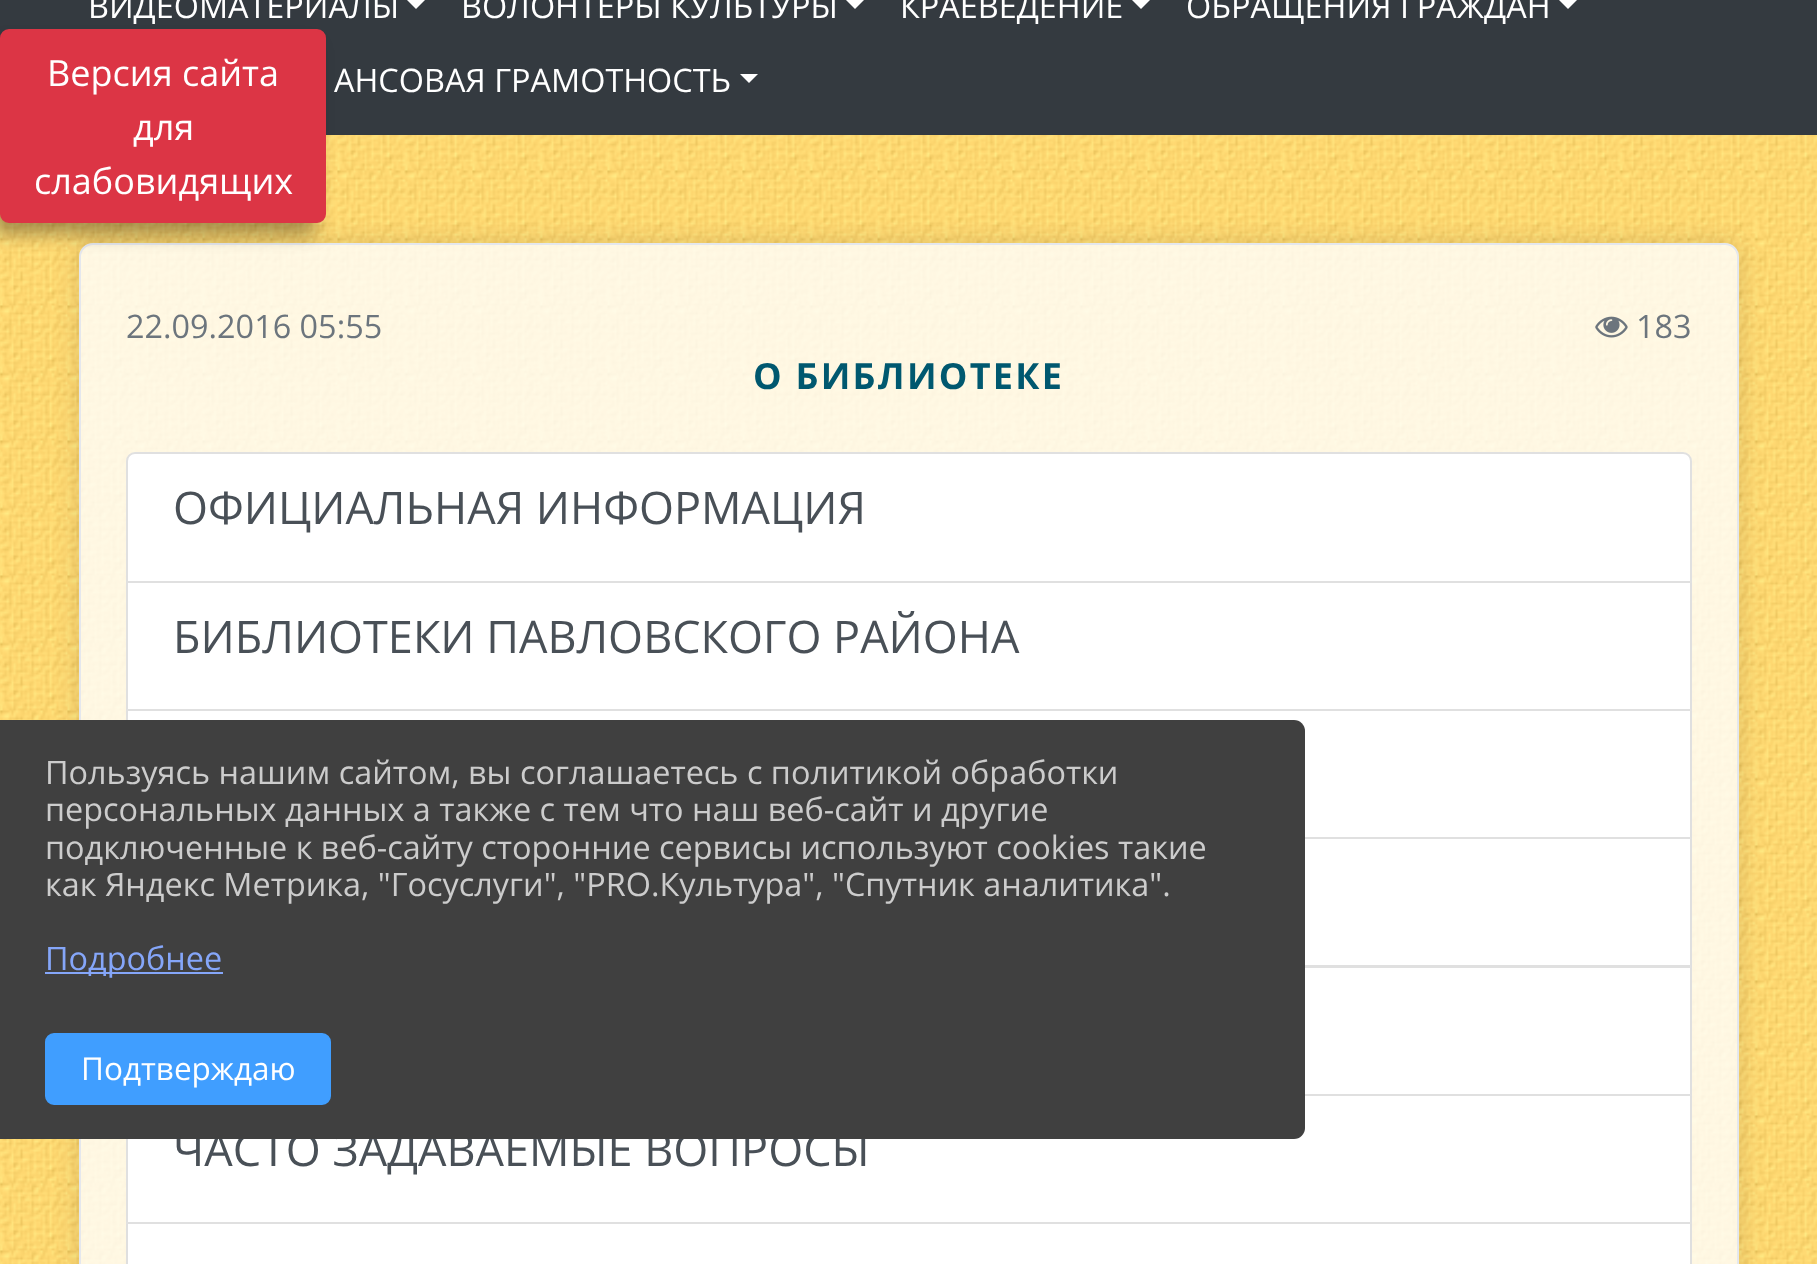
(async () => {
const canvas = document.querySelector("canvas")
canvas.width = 1817
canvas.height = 1264
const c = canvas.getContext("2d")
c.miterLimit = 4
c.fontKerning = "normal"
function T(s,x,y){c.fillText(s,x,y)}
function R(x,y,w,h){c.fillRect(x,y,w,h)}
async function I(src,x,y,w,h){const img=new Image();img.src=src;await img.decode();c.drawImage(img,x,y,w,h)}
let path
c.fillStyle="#fff"
R(0,0,1817,1264)
await I("1.png",0,135,1817,1129)
c.fillStyle="#343a40"
R(0,0,1817,135)
c.font="32.4px Open Sans"
c.fillStyle="#fff"
T("ВИДЕОМАТЕРИАЛЫ",88,18)
path = new Path2D("M407 0h18l-9 9z")
c.fill(path)
T("ВОЛОНТЕРЫ КУЛЬТУРЫ",461,18)
path = new Path2D("M846 0h18l-9 9z")
c.fill(path)
T("КРАЕВЕДЕНИЕ",900,18)
path = new Path2D("M1132 0h18l-9 9z")
c.fill(path)
T("ОБРАЩЕНИЯ ГРАЖДАН",1186,18)
path = new Path2D("M1559 0h18l-9 9z")
c.fill(path)
T("АНСОВАЯ ГРАМОТНОСТЬ",334,92)
path = new Path2D("M740 74h18l-9 9z")
c.fill(path)
c.save()
path = new Path2D("M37 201h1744v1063h-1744zm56 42h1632c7.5 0 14 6.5 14 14v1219c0 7.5-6.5 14-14 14h-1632c-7.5 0-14-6.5-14-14v-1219c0-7.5 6.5-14 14-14z")
c.clip(path,"evenodd")
c.fillStyle="#0000001f"
c.filter="blur(13.5px)"
c.beginPath()
c.roundRect(79,243,1660,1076,14)
c.fill()
c.filter="none"
c.restore()
c.fillStyle="#ffffffcc"
c.beginPath()
c.roundRect(80,244,1658,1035,13)
c.fill()
c.strokeStyle="#e4e7ed"
c.lineWidth=2
c.stroke()
c.fillStyle="#6c757d"
T("22.09.2016 05:55",126,338)
await I("2.png",1595,316,33,22)
T("183",1636,338)
c.letterSpacing="2.25px"
c.font="bold 36px Open Sans"
c.fillStyle="#00586f"
T("О БИБЛИОТЕКЕ",753,389)
c.fillStyle="#fff"
c.beginPath()
c.roundRect(126,452,1566,131,[9,9,0,0])
c.fill()
c.beginPath()
c.roundRect(127,453,1564,129,[8,8,0,0])
c.strokeStyle="#0000001f"
c.stroke()
c.letterSpacing="0px"
c.font="45px Open Sans"
c.fillStyle="#495057"
T("ОФИЦИАЛЬНАЯ ИНФОРМАЦИЯ",173,524)
c.fillStyle="#fff"
R(126,583,1566,256)
c.fillStyle="#dfdfdf"
path = new Path2D("M1692 583v128l-2-2v-126z")
c.fill(path)
c.fillStyle="#0000001f"
path = new Path2D("M1692 711h-1566l2-2h1562z")
c.fill(path)
path = new Path2D("M126 711v-128h2v126z")
c.fill(path)
c.fillStyle="#495057"
T("БИБЛИОТЕКИ ПАВЛОВСКОГО РАЙОНА",173,653)
c.fillStyle="#dfdfdf"
path = new Path2D("M1692 711v128l-2-2v-126z")
c.fill(path)
c.fillStyle="#0000001f"
path = new Path2D("M1692 839h-1566l2-2h1562z")
c.fill(path)
path = new Path2D("M126 839v-128h2v126z")
c.fill(path)
c.fillStyle="#fff"
R(1305,839,387,257)
c.fillStyle="#dfdfdf"
path = new Path2D("M1692 839v129l-2-3v-126z")
c.fill(path)
c.fillStyle="#0000001f"
path = new Path2D("M1692 968h-1566l2-3h1562z")
c.fill(path)
c.fillStyle="#dfdfdf"
path = new Path2D("M1692 968v128l-2-2v-126z")
c.fill(path)
c.fillStyle="#0000001f"
path = new Path2D("M1692 1096h-1566l2-2h1562z")
c.fill(path)
c.fillStyle="#fff"
R(126,1096,1566,128)
c.fillStyle="#dfdfdf"
path = new Path2D("M1692 1096v128l-2-2v-126z")
c.fill(path)
c.fillStyle="#0000001f"
path = new Path2D("M1692 1224h-1566l2-2h1562z")
c.fill(path)
path = new Path2D("M126 1224v-128h2v126z")
c.fill(path)
c.fillStyle="#495057"
T("ЧАСТО ЗАДАВАЕМЫЕ ВОПРОСЫ",173,1166)
c.fillStyle="#fff"
R(128,1224,1562,40)
c.fillStyle="#dfdfdf"
path = new Path2D("M126 1224h1566v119c0 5-4 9-9 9h-1548c-5 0-9-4-9-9zm2 0h1562v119c0 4-3 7-7 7h-1548c-4 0-7-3-7-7z")
c.fill(path,"evenodd")
c.fillStyle="#00000059"
c.filter="blur(9px)"
c.beginPath()
c.roundRect(-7,45,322,189,7)
c.fill()
c.filter="none"
c.fillStyle="#dc3545"
c.beginPath()
c.roundRect(1,30,324,192,8)
c.fill()
c.strokeStyle="#dc3545"
c.stroke()
c.font="36px Open Sans"
c.fillStyle="#fff"
T("Версия сайта",47,86)
T("для",133,140)
T("слабовидящих",34,194)
c.fillStyle="#404040"
c.beginPath()
c.roundRect(0,720,1305,419,[0,11,11,0])
c.fill()
c.font="32.4px Open Sans"
c.fillStyle="#ccc"
T("Пользуясь нашим сайтом, вы соглашаетесь с политикой обработки",45,784)
T("персональных данных а также с тем что наш веб-сайт и другие",45,821)
T("подключенные к веб-сайту сторонние сервисы используют cookies такие",45,859)
T("как Яндекс Метрика, \"Госуслуги\", \"PRO.Культура\", \"Спутник аналитика\".",45,896)
c.fillStyle="#85a6f9"
R(45,972,178,2)
T("Подробнее",45,970)
c.fillStyle="#409eff"
c.beginPath()
c.roundRect(46,1034,284,70,8)
c.fill()
c.strokeStyle="#409eff"
c.stroke()
c.font="31.5px Open Sans"
c.fillStyle="#fff"
T("Подтверждаю",81,1080)
})()
